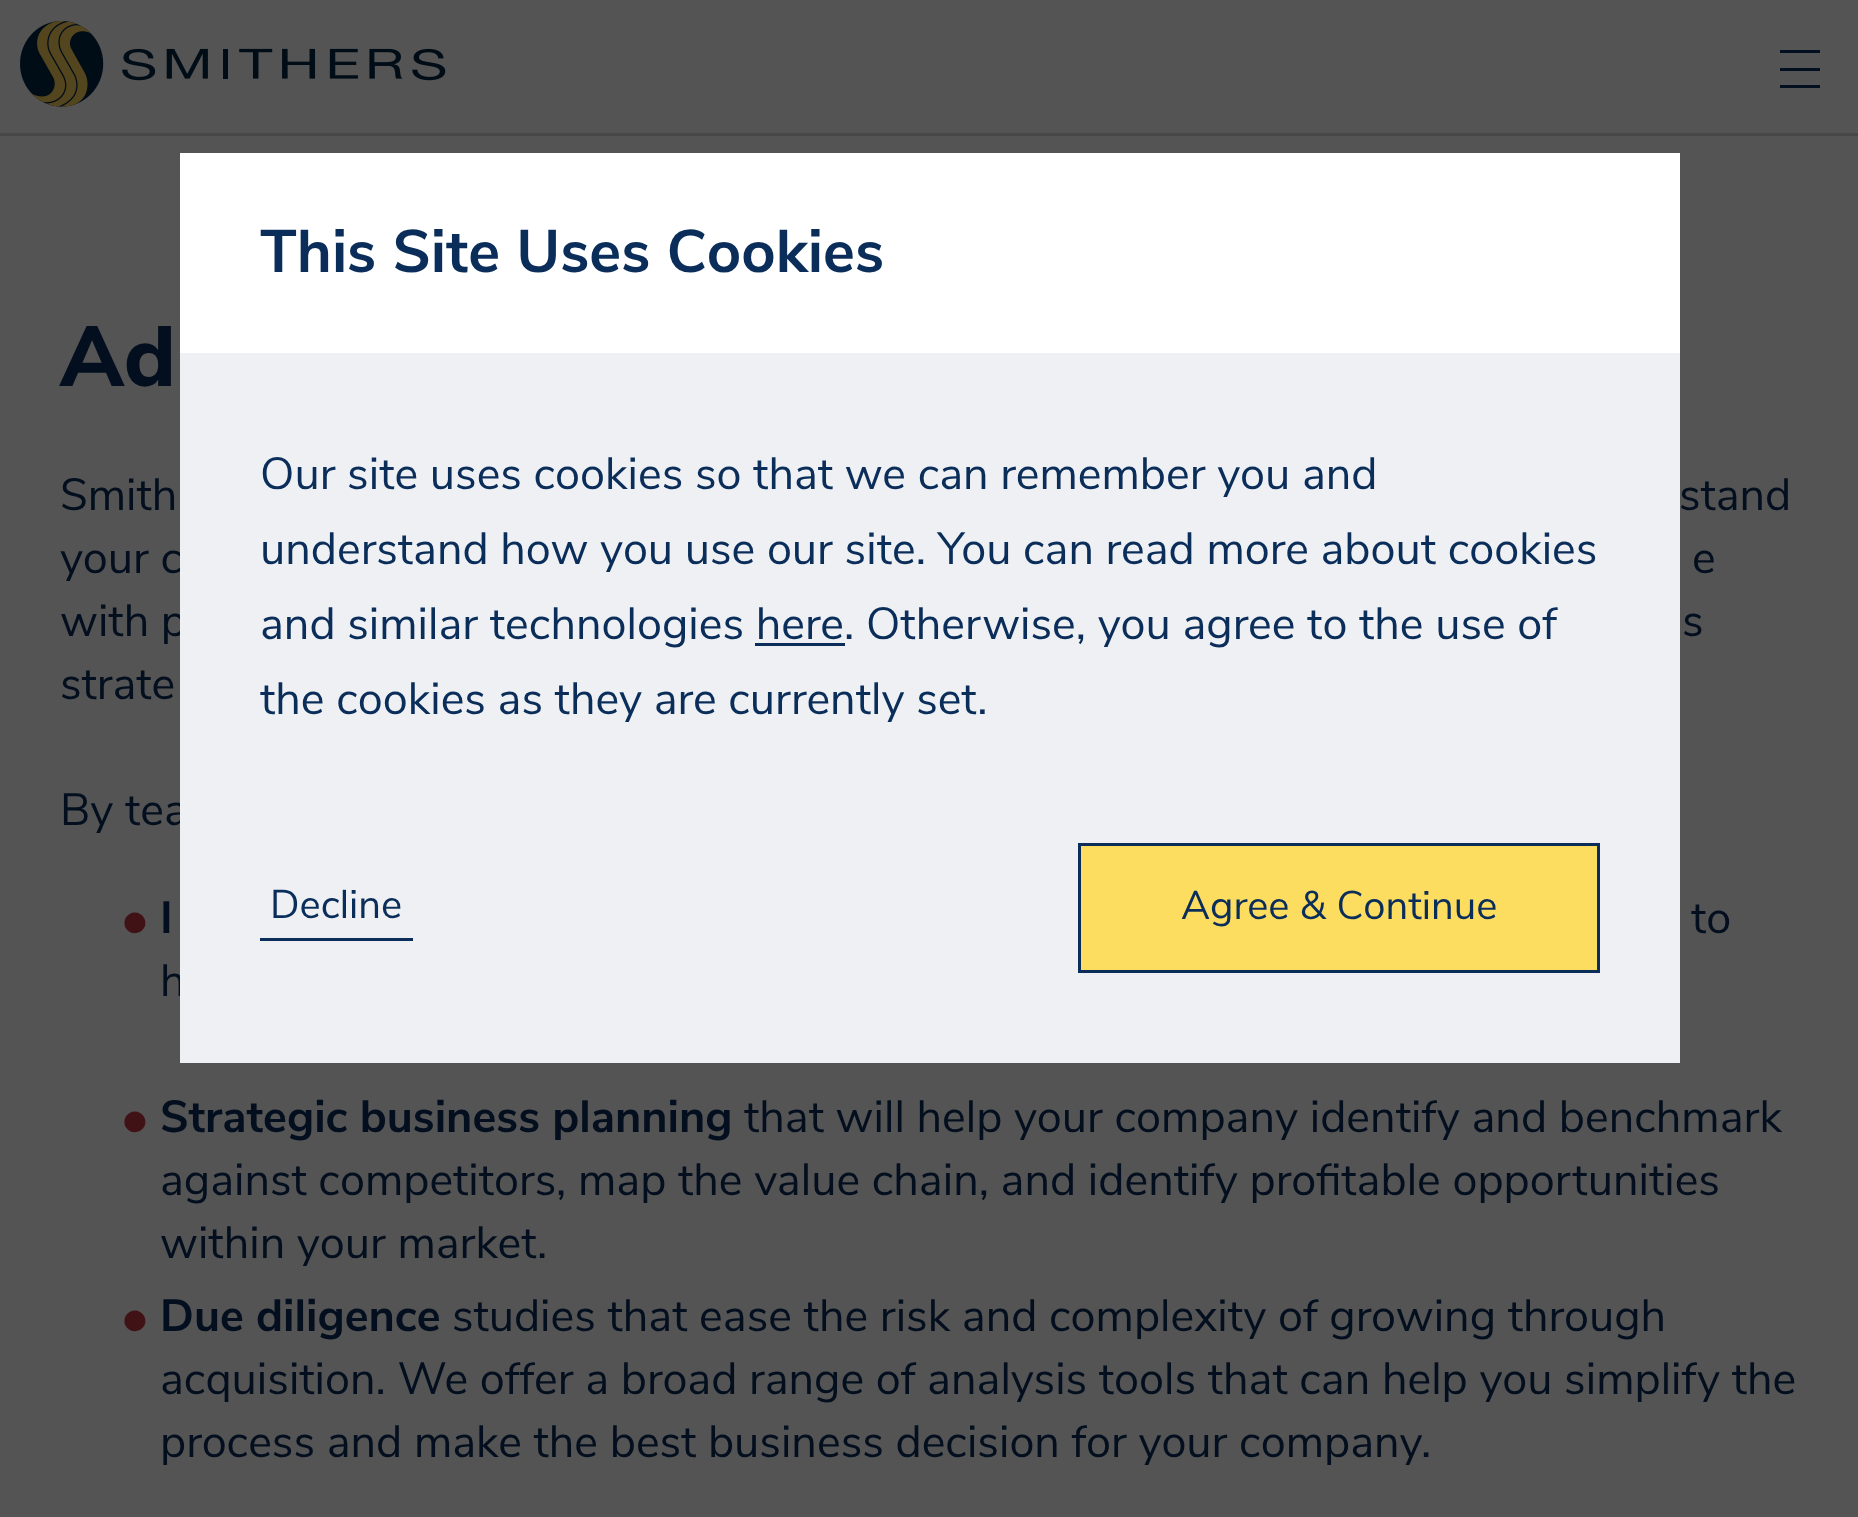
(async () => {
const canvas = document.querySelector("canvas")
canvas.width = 1858
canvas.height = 1517
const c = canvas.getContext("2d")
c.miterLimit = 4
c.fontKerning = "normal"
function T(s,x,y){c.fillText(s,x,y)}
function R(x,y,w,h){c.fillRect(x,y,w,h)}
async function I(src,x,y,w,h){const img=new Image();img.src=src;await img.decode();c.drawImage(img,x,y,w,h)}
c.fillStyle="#545454"
R(0,0,1858,1517)
c.fillStyle="#474747"
R(0,133,1858,3)
await I("1.png",20,21,426,86)
c.fillStyle="#030f1e"
R(1780,50,40,3)
R(1780,68,40,3)
R(1780,85,40,3)
c.fillStyle="#fff"
R(180,153,1500,200)
c.font="bold 60px Nunito Sans"
c.fillStyle="#0a2d5a"
T("This Site Uses Cookies",260,272)
c.font="45px Nunito Sans"
c.fillStyle="#030f1e"
T("your c",60,573)
T("with p",60,636)
T("By tea",60,825)
T("h",160,996)
c.fillStyle="#eef0f3"
R(180,353,1500,710)
c.fillStyle="#0a2d5a"
T("Our site uses cookies so that we can remember you and",260,489)
T("understand how you use our site. You can read more about cookies",260,564)
T("and similar technologies here. Otherwise, you agree to the use of",260,639)
R(755,643,90,3)
T("the cookies as they are currently set.",260,714)
c.font="40px Nunito Sans"
T("Decline",270,918)
R(260,938,153,3)
c.fillStyle="#fddd5f"
c.beginPath()
c.rect(1079.5,844.5,519,127)
c.fill()
c.strokeStyle="#0a2d5a"
c.lineWidth=3
c.stroke()
c.fillStyle="#0a2d5a"
T("Agree & Continue",1181,919)
c.font="800 85px Nunito Sans"
c.fillStyle="#030f1e"
T("Ad",60,386)
c.font="45px Nunito Sans"
T("Smith",60,510)
T("stand",1679,510)
T("e",1692,573)
T("s",1682,636)
T("strate",60,699)
c.font="bold 54px 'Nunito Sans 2'"
c.fillStyle="#401216"
T("•",120,938)
c.font="bold 45px Nunito Sans"
c.fillStyle="#030f1e"
T("I",160,933)
c.font="45px Nunito Sans"
T("to",1691,933)
c.font="bold 54px 'Nunito Sans 2'"
c.fillStyle="#401216"
T("•",120,1137)
c.font="bold 45px Nunito Sans"
c.fillStyle="#030f1e"
T("Strategic business planning",160,1132)
c.font="45px Nunito Sans"
T("that will help your company identify and benchmark",744,1132)
T("against competitors, map the value chain, and identify profitable opportunities",160,1195)
T("within your market.",160,1258)
c.font="bold 54px 'Nunito Sans 2'"
c.fillStyle="#401216"
T("•",120,1336)
c.font="bold 45px Nunito Sans"
c.fillStyle="#030f1e"
T("Due diligence",160,1331)
c.font="45px Nunito Sans"
T("studies that ease the risk and complexity of growing through",452,1331)
T("acquisition. We offer a broad range of analysis tools that can help you simplify the",160,1394)
T("process and make the best business decision for your company.",160,1457)
})()
